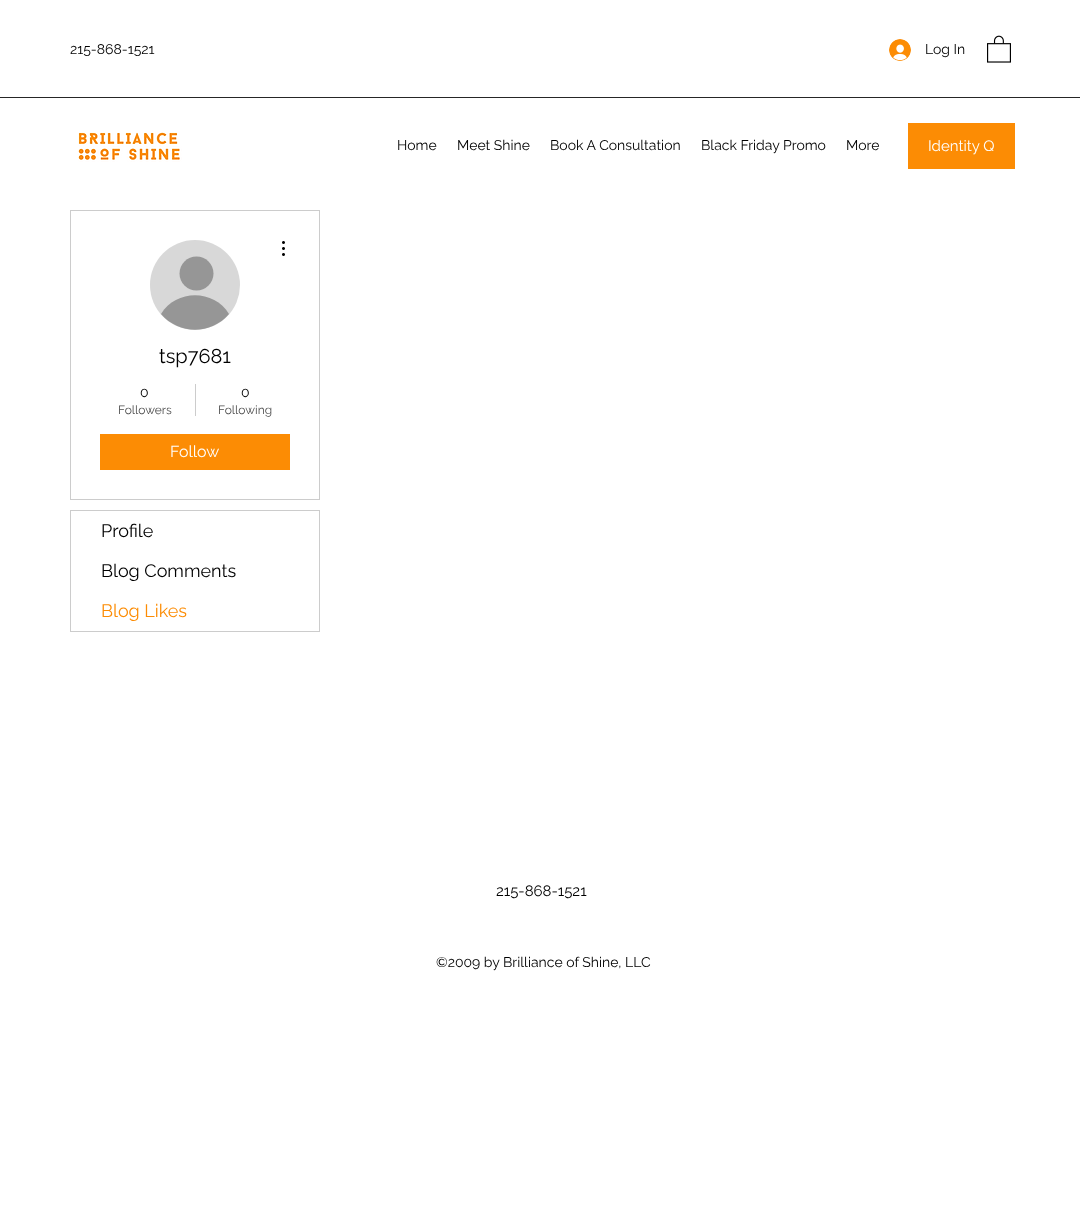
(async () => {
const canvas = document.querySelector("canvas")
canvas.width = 1080
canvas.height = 1221
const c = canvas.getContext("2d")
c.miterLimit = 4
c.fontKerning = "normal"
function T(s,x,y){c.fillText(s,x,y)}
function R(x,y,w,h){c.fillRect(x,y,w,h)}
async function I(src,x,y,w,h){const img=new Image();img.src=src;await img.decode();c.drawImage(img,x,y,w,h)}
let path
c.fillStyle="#fff"
R(0,0,1080,1221)
c.font="14px Raleway"
c.fillStyle="#000"
T("215-868-1521",70,54)
await I("1.png",889,39,22,22)
T("Log In",925,54)
await I("2.png",987,35,24,28)
c.fillStyle="#262626"
R(0,97,1080,1)
await I("3.png",78,132,104,30)
c.fillStyle="#000"
T("Home",397,150)
T("Meet Shine",457,150)
T("Book A Consultation",550,150)
T("Black Friday Promo",701,150)
T("More",846,150)
c.fillStyle="#fc8c04"
R(908,123,107,46)
c.font="15px Raleway"
c.fillStyle="#fff"
T("Identity Q",928,151)
c.strokeStyle="#ccc"
c.strokeRect(70.5,210.5,249,289)
c.fillStyle="#d8d8d8"
c.beginPath()
c.arc(195,285,45,0,7)
c.fill()
c.fillStyle="#969696"
c.beginPath()
c.arc(196.5,273.5,17,0,7)
c.fill()
path = new Path2D("M229 314c-18 21-50 21-68 0c15-25 53-25 68 0z")
c.fill(path)
await I("4.png",282,241,3,15)
c.font="20px Raleway"
c.fillStyle="#000"
T("tsp7681",159,363)
c.font="14px Raleway"
T("0",140,397)
c.font="12px Raleway"
c.fillStyle="#4d4d4d"
T("Followers",118,414)
c.fillStyle="#ccc"
R(195,384,1,32)
c.font="14px Raleway"
c.fillStyle="#000"
T("0",241,397)
c.font="12px Raleway"
c.fillStyle="#4d4d4d"
T("Following",218,414)
c.fillStyle="#fc8c04"
R(100,434,190,36)
c.font="16px Raleway"
c.fillStyle="#fff"
T("Follow",170,457)
c.strokeRect(70.5,510.5,249,121)
c.font="18px Raleway"
c.fillStyle="#000"
T("Profile",101,537)
T("Blog Comments",101,577)
c.fillStyle="#fc8c04"
T("Blog Likes",101,617)
c.font="15px Raleway"
c.fillStyle="#000"
T("215-868-1521",496,896)
c.font="14px Raleway"
T("©2009 by Brilliance of Shine, LLC",436,967)
})()
